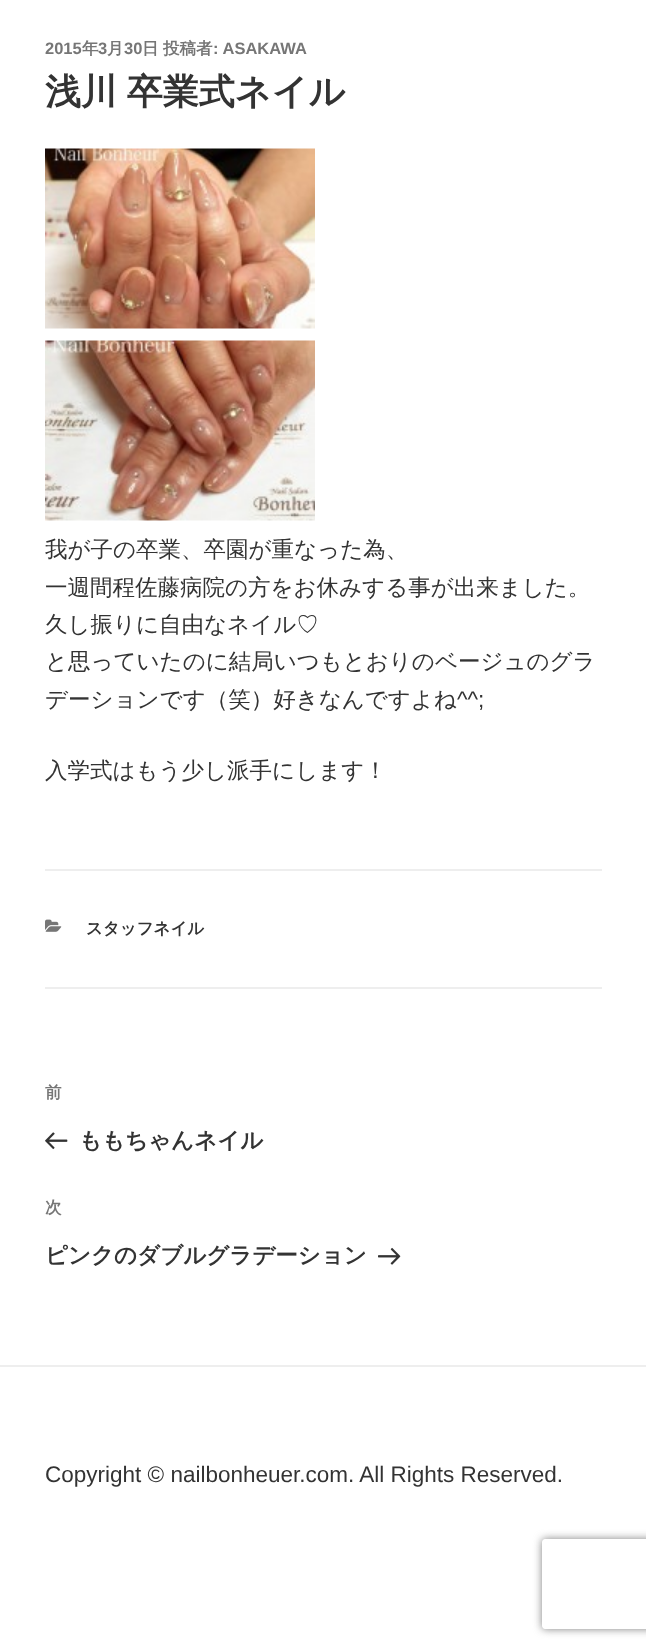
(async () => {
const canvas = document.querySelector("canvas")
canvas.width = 646
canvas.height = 1649
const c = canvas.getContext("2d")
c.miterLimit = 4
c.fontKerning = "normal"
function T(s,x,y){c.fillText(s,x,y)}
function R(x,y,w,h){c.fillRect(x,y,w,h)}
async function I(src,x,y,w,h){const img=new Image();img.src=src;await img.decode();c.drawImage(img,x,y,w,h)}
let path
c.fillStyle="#fff"
R(0,0,646,1649)
c.font="bold 16.5px Liberation Sans"
c.fillStyle="#767676"
T("2015",45,54)
c.font="bold 16.5px WenQuanYi Zen Hei"
T("年",82,54)
c.font="bold 16.5px Liberation Sans"
T("3",98,54)
c.font="bold 16.5px WenQuanYi Zen Hei"
T("月",107,54)
c.font="bold 16.5px Liberation Sans"
T("30",124,54)
c.font="bold 16.5px WenQuanYi Zen Hei"
T("日",142,54)
T("投稿者",163,54)
c.font="bold 16.5px Liberation Sans"
T(": ASAKAWA",213,54)
c.wordSpacing="-1px"
c.font="bold 36px WenQuanYi Zen Hei"
c.fillStyle="#333"
T("浅川 卒業式ネイル",45,104)
await I("1.png",45,148,270,181)
await I("2.png",45,340,270,181)
c.wordSpacing="0px"
c.font="500 22.5px WenQuanYi Zen Hei"
T("我が子の卒業、卒園が重なった為、",45,557)
T("一週間程佐藤病院の方をお休みする事が出来ました。",45,595)
T("久し振りに自由なネイル♡",45,632)
T("と思っていたのに結局いつもとおりのベージュのグラ",45,669)
T("デーションです（笑）好きなんですよね",45,707)
c.font="22.5px Liberation Sans"
T("^^;",457,707)
c.font="500 22.5px WenQuanYi Zen Hei"
T("入学式はもう少し派手にします！",45,778)
c.fillStyle="#eee"
R(45,869,557,2)
R(45,987,557,2)
await I("3.png",45,919,17,13)
c.font="bold 16.5px WenQuanYi Zen Hei"
c.fillStyle="#333"
T("スタッフネイル",86,934)
c.fillStyle="#767676"
T("前",45,1098)
await I("4.png",45,1132,23,18)
c.font="bold 22.5px WenQuanYi Zen Hei"
c.fillStyle="#333"
T("ももちゃんネイル",79,1148)
c.font="bold 16.5px WenQuanYi Zen Hei"
c.fillStyle="#767676"
T("次",45,1213)
c.font="bold 22.5px WenQuanYi Zen Hei"
c.fillStyle="#333"
T("ピンクのダブルグラデーション",45,1263)
await I("5.png",378,1247,23,18)
c.fillStyle="#eee"
R(0,1365,646,2)
c.font="22.5px Liberation Sans"
c.fillStyle="#333"
T("Copyright © nailbonheuer.com. All Rights Reserved.",45,1482)
c.save()
path = new Path2D("M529 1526h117v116h-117zm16 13h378c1.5 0 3 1.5 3 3v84c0 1.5-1.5 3-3 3h-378c-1.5 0-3-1.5-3-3v-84c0-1.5 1.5-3 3-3z")
c.clip(path,"evenodd")
c.fillStyle="#808080"
c.filter="blur(4px)"
c.beginPath()
c.roundRect(542,1539,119,90,3)
c.fill()
c.filter="none"
c.restore()
})()
